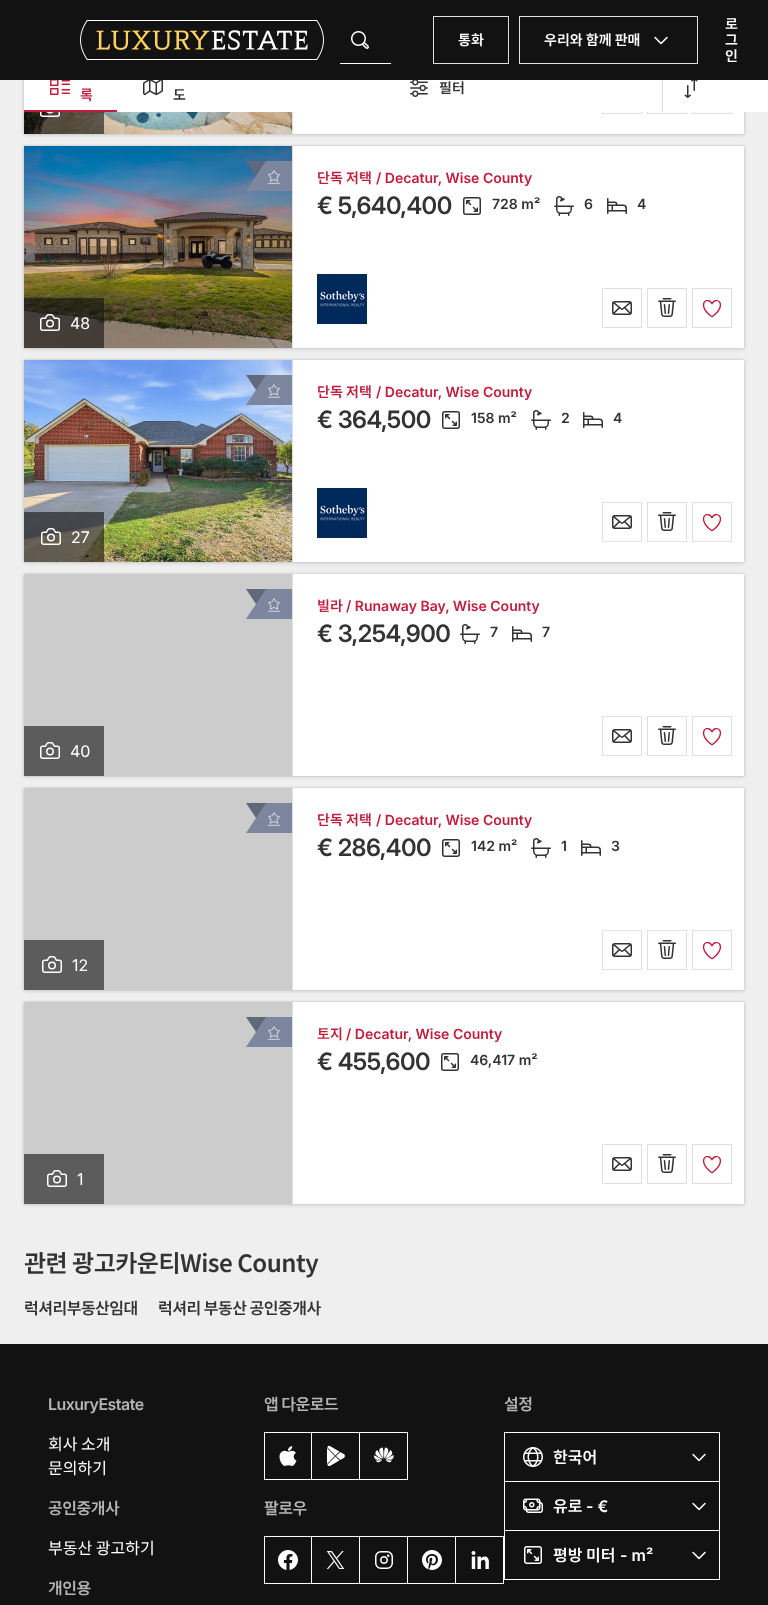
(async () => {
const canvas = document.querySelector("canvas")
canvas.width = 768
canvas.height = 1605
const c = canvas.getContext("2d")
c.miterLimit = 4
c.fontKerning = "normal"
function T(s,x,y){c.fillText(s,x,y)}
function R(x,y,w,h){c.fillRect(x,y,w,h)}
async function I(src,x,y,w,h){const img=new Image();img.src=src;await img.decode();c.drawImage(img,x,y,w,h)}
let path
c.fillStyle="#efefef"
R(0,0,768,1605)
c.fillStyle="#1212121f"
c.filter="blur(2px)"
c.beginPath()
c.rect(24,-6,720,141)
c.fill()
c.filter="none"
c.fillStyle="#12121229"
c.filter="blur(1px)"
c.beginPath()
c.rect(24,-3,720,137)
c.fill()
c.filter="none"
c.fillStyle="#fff"
R(293,112,451,22)
c.strokeStyle="#dfdfdf"
c.strokeRect(602.5,74.5,39,39)
c.strokeRect(647.5,74.5,39,39)
c.strokeRect(692.5,74.5,39,39)
c.fillStyle="#121212"
R(0,0,768,80)
await I("1.png",80,20,244,40)
await I("2.png",351,31,18,18)
c.fillStyle="#fff"
R(340,63,51,1)
c.strokeRect(433.5,16.5,75,47)
c.font="600 14px Noto Sans KR"
T("통화",458,45)
c.strokeRect(519.5,16.5,178,47)
T("우리와 함께 판매",544,45)
await I("3.png",654,36,14,9)
T("로",725,29)
T("그",725,45)
T("인",725,61)
R(24,80,744,32)
c.fillStyle="#c11e3d"
R(24,110,93,2)
await I("4.png",50,80,20,16)
T("록",80,100)
await I("5.png",143,80,20,16)
c.fillStyle="#333"
T("도",173,100)
await I("6.png",410,80,18,17)
T("필터",439,93)
c.fillStyle="#dfdfdf"
R(662,80,1,32)
await I("7.png",684,80,14,18)
await I("8.png",24,112,268,22)
c.fillStyle="#12121299"
R(24,112,80,22)
await I("9.png",40,112,20,5)
c.fillStyle="#dfdfdf"
R(292,112,1,22)
c.fillStyle="#1212121f"
c.filter="blur(2px)"
c.beginPath()
c.rect(24,147,720,202)
c.fill()
c.filter="none"
c.fillStyle="#12121229"
c.filter="blur(1px)"
c.beginPath()
c.rect(24,146,720,202)
c.fill()
c.filter="none"
c.fillStyle="#fff"
R(293,146,451,202)
await I("18.png",24,146,268,202)
c.fillStyle="#7c869e"
R(256,161,36,30)
c.fillStyle="#60687a"
path = new Path2D("M246 161h20l-10 15z")
c.fill(path)
await I("10.png",268,170,12,14)
c.fillStyle="#7c869e"
path = new Path2D("M256 191h-10l10-15z")
c.fill(path)
c.fillStyle="#dfdfdf"
R(292,146,1,202)
c.fillStyle="#c11e3d"
T("단독",317,183)
T("저택",346,183)
c.font="600 14px 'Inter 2'"
T("/ Decatur, Wise County",376,183)
c.letterSpacing="-0.5px"
c.font="600 24px Inter"
c.fillStyle="#333"
T("€ 5,640,400",317,214)
await I("11.png",463,197,18,18)
c.letterSpacing="0px"
c.font="600 14px 'Inter 2'"
T("728 m²",492,209)
await I("12.png",554,196,20,20)
T("6",584,209)
await I("13.png",607,198,20,16)
T("4",637,209)
await I("14.png",317,274,50,50)
c.strokeRect(602.5,288.5,39,39)
await I("15.png",612,301,20,14)
c.strokeRect(647.5,288.5,39,39)
await I("16.png",658,298,18,19)
c.strokeRect(692.5,288.5,39,39)
await I("17.png",702,300,20,18)
c.fillStyle="#12121299"
R(24,298,80,50)
await I("19.png",40,314,20,17)
c.font="16px Inter"
c.fillStyle="#fff"
T("48",70,329)
c.fillStyle="#1212121f"
c.filter="blur(2px)"
c.beginPath()
c.rect(24,361,720,202)
c.fill()
c.filter="none"
c.fillStyle="#12121229"
c.filter="blur(1px)"
c.beginPath()
c.rect(24,360,720,202)
c.fill()
c.filter="none"
c.fillStyle="#fff"
R(293,360,451,202)
await I("21.png",24,360,268,202)
c.fillStyle="#7c869e"
R(256,375,36,30)
c.fillStyle="#60687a"
path = new Path2D("M246 375h20l-10 15z")
c.fill(path)
await I("20.png",268,384,12,14)
c.fillStyle="#7c869e"
path = new Path2D("M256 405h-10l10-15z")
c.fill(path)
c.fillStyle="#dfdfdf"
R(292,360,1,202)
c.font="600 14px Noto Sans KR"
c.fillStyle="#c11e3d"
T("단독",317,397)
T("저택",346,397)
c.font="600 14px 'Inter 2'"
T("/ Decatur, Wise County",376,397)
c.letterSpacing="-0.5px"
c.font="600 24px Inter"
c.fillStyle="#333"
T("€ 364,500",317,428)
await I("11.png",442,411,18,18)
c.letterSpacing="0px"
c.font="600 14px 'Inter 2'"
T("158 m²",471,423)
await I("12.png",531,410,20,20)
T("2",561,423)
await I("13.png",583,412,20,16)
T("4",613,423)
await I("14.png",317,488,50,50)
c.strokeRect(602.5,502.5,39,39)
await I("15.png",612,515,20,14)
c.strokeRect(647.5,502.5,39,39)
await I("16.png",658,512,18,19)
c.strokeRect(692.5,502.5,39,39)
await I("17.png",702,514,20,18)
c.fillStyle="#12121299"
R(24,512,80,50)
await I("22.png",41,528,20,17)
c.font="16px Inter"
c.fillStyle="#fff"
T("27",71,543)
c.fillStyle="#1212121f"
c.filter="blur(2px)"
c.beginPath()
c.rect(24,575,720,202)
c.fill()
c.filter="none"
c.fillStyle="#12121229"
c.filter="blur(1px)"
c.beginPath()
c.rect(24,574,720,202)
c.fill()
c.filter="none"
c.fillStyle="#fff"
R(293,574,451,202)
c.fillStyle="#ccc"
R(24,574,268,202)
c.fillStyle="#7c869e"
R(256,589,36,30)
c.fillStyle="#60687a"
path = new Path2D("M246 589h20l-10 15z")
c.fill(path)
await I("10.png",268,598,12,14)
c.fillStyle="#7c869e"
path = new Path2D("M256 619h-10l10-15z")
c.fill(path)
c.fillStyle="#dfdfdf"
R(292,574,1,202)
c.font="600 14px Noto Sans KR"
c.fillStyle="#c11e3d"
T("빌라",317,611)
c.font="600 14px 'Inter 2'"
T("/ Runaway Bay, Wise County",346,611)
c.letterSpacing="-0.5px"
c.font="600 24px Inter"
c.fillStyle="#333"
T("€ 3,254,900",317,642)
await I("12.png",460,624,20,20)
c.letterSpacing="0px"
c.font="600 14px 'Inter 2'"
T("7",490,637)
await I("13.png",512,626,20,16)
T("7",542,637)
c.strokeRect(602.5,716.5,39,39)
await I("15.png",612,729,20,14)
c.strokeRect(647.5,716.5,39,39)
await I("16.png",658,726,18,19)
c.strokeRect(692.5,716.5,39,39)
await I("17.png",702,728,20,18)
c.fillStyle="#5c5c5c"
R(24,726,80,50)
await I("23.png",40,742,20,17)
c.font="16px 'Inter 2'"
c.fillStyle="#fff"
T("40",70,757)
c.fillStyle="#1212121f"
c.filter="blur(2px)"
c.beginPath()
c.rect(24,789,720,202)
c.fill()
c.filter="none"
c.fillStyle="#12121229"
c.filter="blur(1px)"
c.beginPath()
c.rect(24,788,720,202)
c.fill()
c.filter="none"
c.fillStyle="#fff"
R(293,788,451,202)
c.fillStyle="#ccc"
R(24,788,268,202)
c.fillStyle="#7c869e"
R(256,803,36,30)
c.fillStyle="#60687a"
path = new Path2D("M246 803h20l-10 15z")
c.fill(path)
await I("10.png",268,812,12,14)
c.fillStyle="#7c869e"
path = new Path2D("M256 833h-10l10-15z")
c.fill(path)
c.fillStyle="#dfdfdf"
R(292,788,1,202)
c.font="600 14px Noto Sans KR"
c.fillStyle="#c11e3d"
T("단독",317,825)
T("저택",346,825)
c.font="600 14px 'Inter 2'"
T("/ Decatur, Wise County",376,825)
c.letterSpacing="-0.5px"
c.font="600 24px Inter"
c.fillStyle="#333"
T("€ 286,400",317,856)
await I("11.png",442,839,18,18)
c.letterSpacing="0px"
c.font="600 14px 'Inter 2'"
T("142 m²",471,851)
await I("12.png",531,838,20,20)
T("1",561,851)
await I("13.png",581,840,20,16)
T("3",611,851)
c.strokeRect(602.5,930.5,39,39)
await I("15.png",612,943,20,14)
c.strokeRect(647.5,930.5,39,39)
await I("16.png",658,940,18,19)
c.strokeRect(692.5,930.5,39,39)
await I("17.png",702,942,20,18)
c.fillStyle="#5c5c5c"
R(24,940,80,50)
await I("23.png",42,956,20,17)
c.font="16px Inter"
c.fillStyle="#fff"
T("12",72,971)
c.fillStyle="#1212121f"
c.filter="blur(2px)"
c.beginPath()
c.rect(24,1003,720,202)
c.fill()
c.filter="none"
c.fillStyle="#12121229"
c.filter="blur(1px)"
c.beginPath()
c.rect(24,1002,720,202)
c.fill()
c.filter="none"
c.fillStyle="#fff"
R(293,1002,451,202)
c.fillStyle="#ccc"
R(24,1002,268,202)
c.fillStyle="#7c869e"
R(256,1017,36,30)
c.fillStyle="#60687a"
path = new Path2D("M246 1017h20l-10 15z")
c.fill(path)
await I("10.png",268,1026,12,14)
c.fillStyle="#7c869e"
path = new Path2D("M256 1047h-10l10-15z")
c.fill(path)
c.fillStyle="#dfdfdf"
R(292,1002,1,202)
c.font="600 14px Noto Sans KR"
c.fillStyle="#c11e3d"
T("토지",317,1039)
c.font="600 14px 'Inter 2'"
T("/ Decatur, Wise County",346,1039)
c.letterSpacing="-0.5px"
c.font="600 24px Inter"
c.fillStyle="#333"
T("€ 455,600",317,1070)
await I("11.png",441,1053,18,18)
c.letterSpacing="0px"
c.font="600 14px 'Inter 2'"
T("46,417 m²",470,1065)
c.strokeRect(602.5,1144.5,39,39)
await I("24.png",612,1157,20,14)
c.strokeRect(647.5,1144.5,39,39)
await I("25.png",658,1154,18,19)
c.strokeRect(692.5,1144.5,39,39)
await I("26.png",702,1156,20,18)
c.fillStyle="#5c5c5c"
R(24,1154,80,50)
await I("23.png",47,1170,20,17)
c.font="16px Inter"
c.fillStyle="#fff"
T("1",77,1185)
c.letterSpacing="-0.5px"
c.font="600 24px Noto Sans KR"
c.fillStyle="#333"
T("관련 광고카운티Wise County",24,1272)
c.font="600 16px Noto Sans KR"
T("럭셔리부동산임대",24,1314)
T("럭셔리 부동산 공인중개사",158,1314)
c.fillStyle="#121212"
R(0,1344,768,261)
c.font="600 16px 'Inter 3'"
c.fillStyle="#b5b5b5"
T("LuxuryEstate",48,1410)
c.letterSpacing="0px"
c.font="16px Noto Sans KR"
c.fillStyle="#fff"
T("회사 소개",48,1450)
T("문의하기",48,1474)
c.letterSpacing="-0.5px"
c.font="600 16px Noto Sans KR"
c.fillStyle="#b5b5b5"
T("공인중개사",48,1514)
c.letterSpacing="0px"
c.font="16px Noto Sans KR"
c.fillStyle="#fff"
T("부동산 광고하기",48,1554)
c.letterSpacing="-0.5px"
c.font="600 16px Noto Sans KR"
c.fillStyle="#b5b5b5"
T("개인용",48,1594)
T("앱 다운로드",264,1410)
c.strokeStyle="#fff"
c.strokeRect(264.5,1432.5,47,47)
await I("27.png",279,1446,18,20)
c.fillStyle="#fff"
R(312,1432,96,1)
R(359,1432,1,48)
R(312,1479,48,1)
await I("28.png",327,1445,18,21)
R(407,1432,1,48)
R(360,1479,48,1)
await I("29.png",374,1447,20,16)
c.fillStyle="#b5b5b5"
T("팔로우",264,1514)
c.strokeRect(264.5,1536.5,47,47)
await I("30.png",278,1550,20,20)
c.fillStyle="#fff"
R(312,1536,192,1)
R(359,1536,1,48)
R(312,1583,48,1)
await I("31.png",326,1551,19,18)
R(407,1536,1,48)
R(360,1583,48,1)
await I("32.png",375,1551,18,18)
R(455,1536,1,48)
R(408,1583,48,1)
await I("33.png",422,1550,20,20)
R(503,1536,1,48)
R(456,1583,48,1)
await I("34.png",471,1551,18,18)
c.fillStyle="#b5b5b5"
T("설정",504,1410)
c.fillStyle="#fff"
R(504,1432,216,1)
R(719,1432,1,49)
R(504,1432,1,49)
await I("35.png",523,1447,20,20)
c.letterSpacing="0px"
T("한국어",553,1463)
await I("3.png",692,1453,14,9)
R(504,1481,216,1)
R(719,1481,1,49)
R(504,1481,1,49)
await I("36.png",523,1498,20,15)
T("유로",553,1512)
c.font="600 16px 'Inter 2'"
T("- €",586,1512)
await I("3.png",692,1502,14,9)
c.strokeRect(504.5,1530.5,215,49)
await I("37.png",524,1546,18,18)
c.font="600 16px Noto Sans KR"
T("평방",553,1561)
T("미터",586,1561)
c.font="600 16px 'Inter 2'"
T("- m²",620,1561)
await I("3.png",692,1551,14,9)
})()
